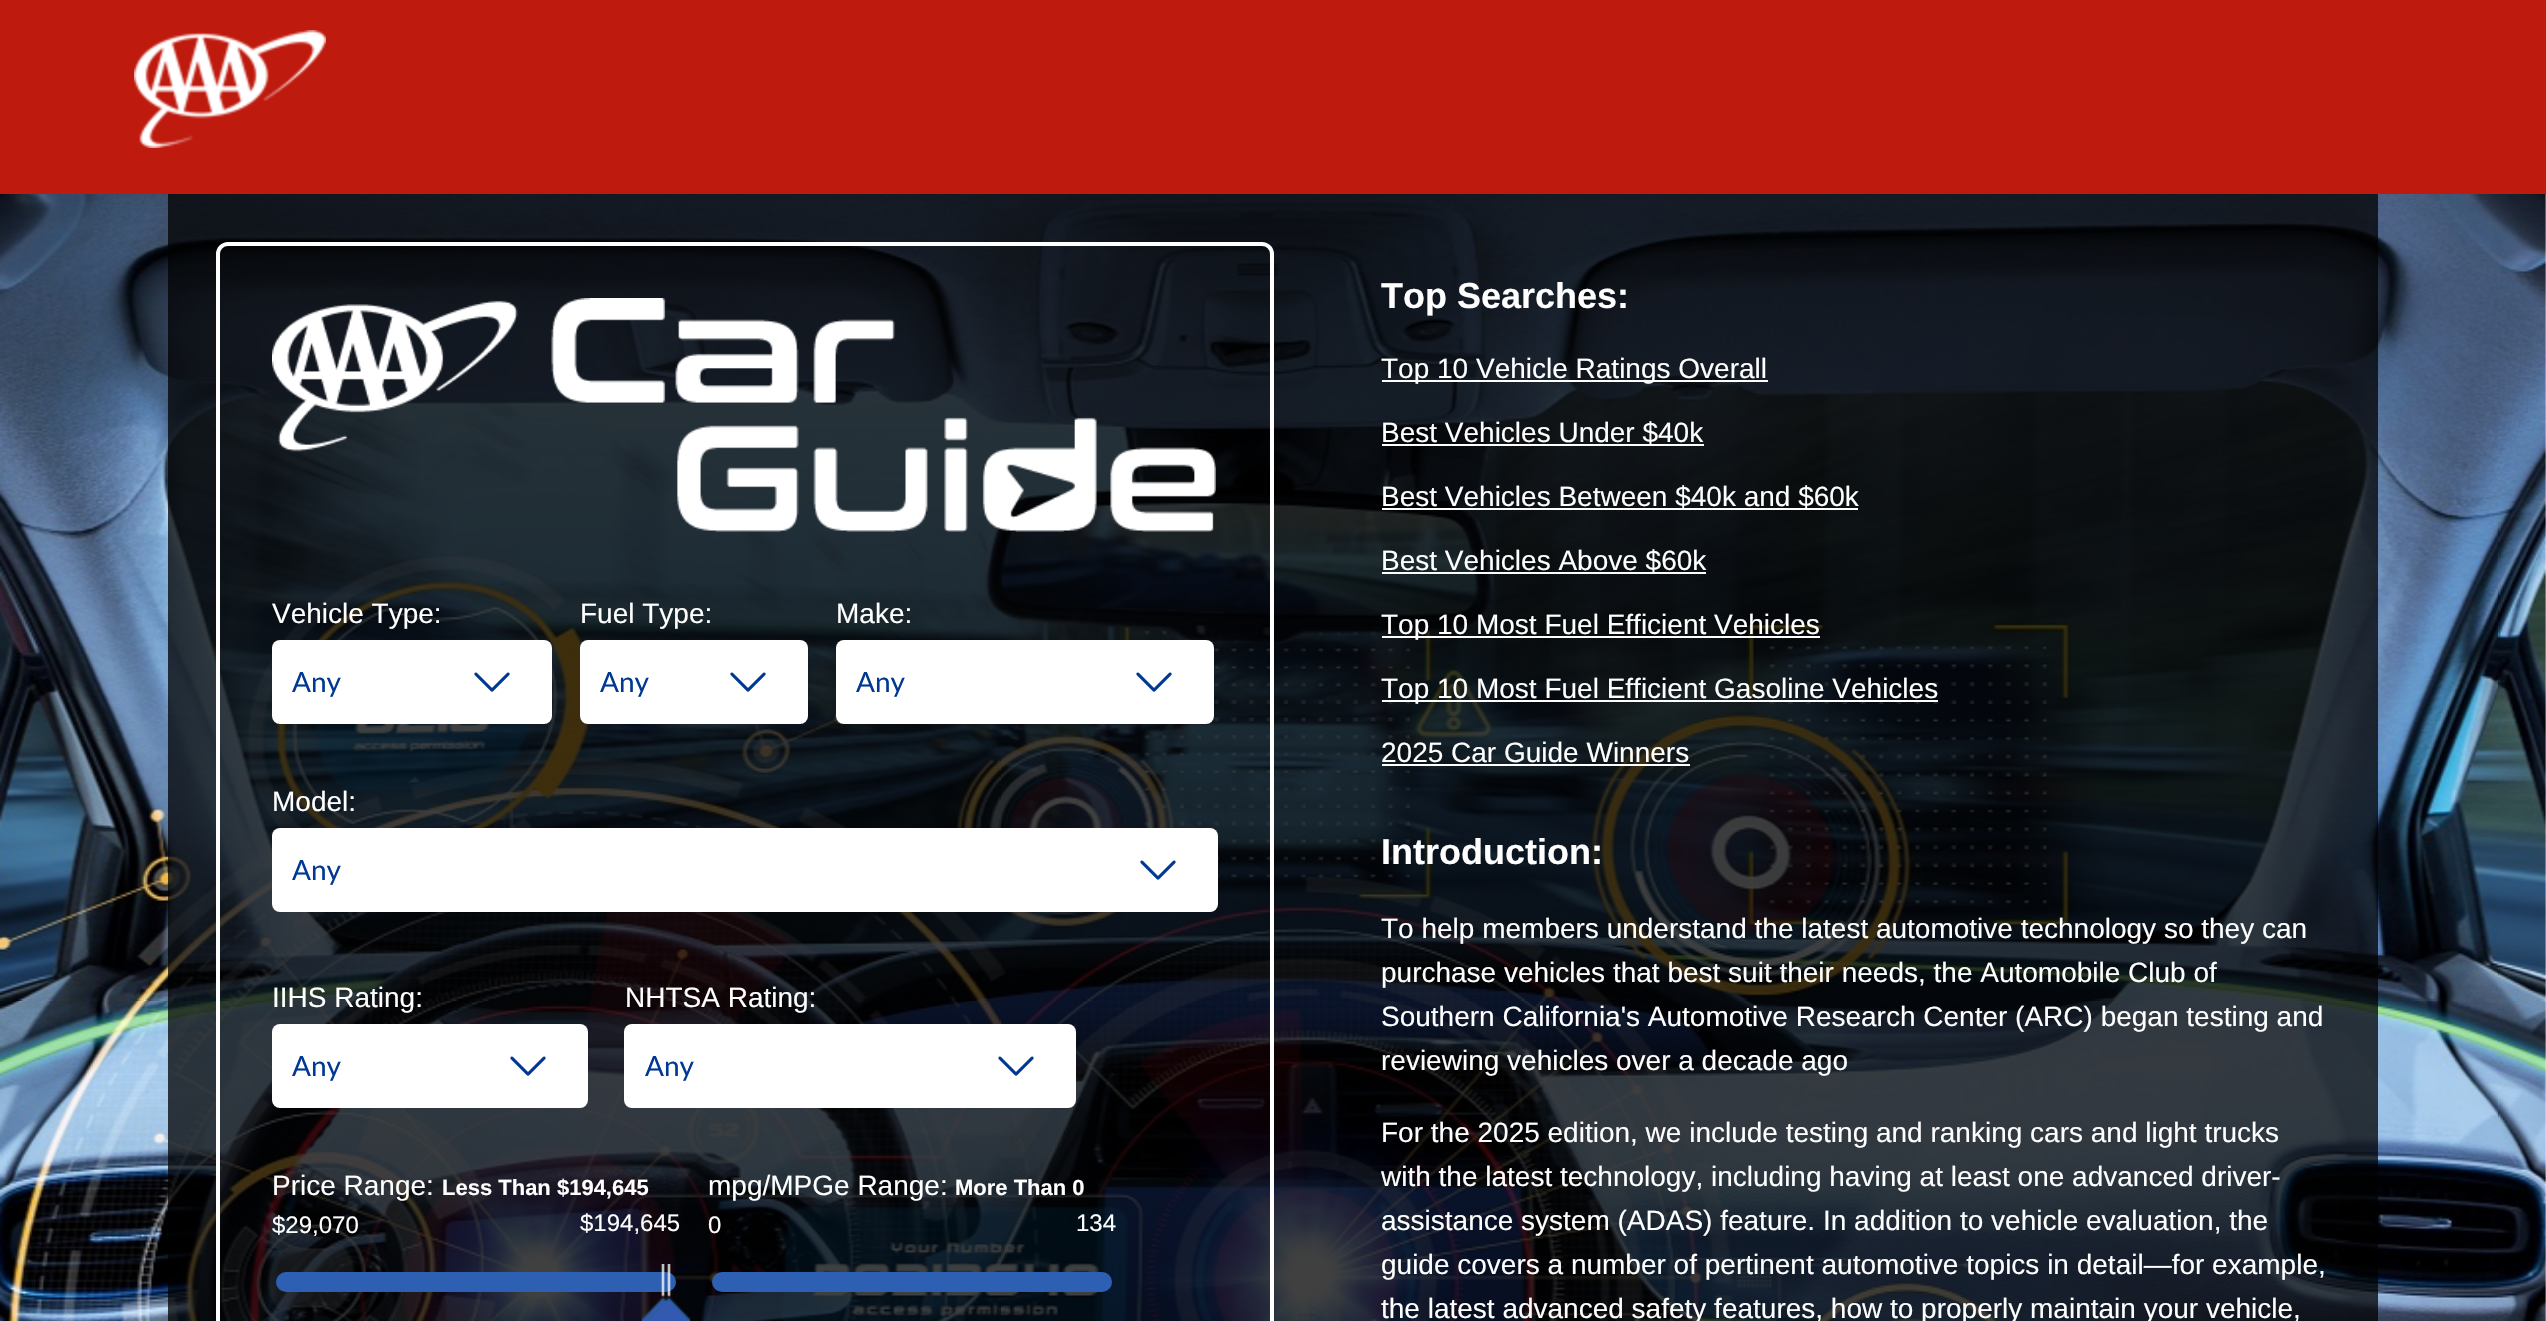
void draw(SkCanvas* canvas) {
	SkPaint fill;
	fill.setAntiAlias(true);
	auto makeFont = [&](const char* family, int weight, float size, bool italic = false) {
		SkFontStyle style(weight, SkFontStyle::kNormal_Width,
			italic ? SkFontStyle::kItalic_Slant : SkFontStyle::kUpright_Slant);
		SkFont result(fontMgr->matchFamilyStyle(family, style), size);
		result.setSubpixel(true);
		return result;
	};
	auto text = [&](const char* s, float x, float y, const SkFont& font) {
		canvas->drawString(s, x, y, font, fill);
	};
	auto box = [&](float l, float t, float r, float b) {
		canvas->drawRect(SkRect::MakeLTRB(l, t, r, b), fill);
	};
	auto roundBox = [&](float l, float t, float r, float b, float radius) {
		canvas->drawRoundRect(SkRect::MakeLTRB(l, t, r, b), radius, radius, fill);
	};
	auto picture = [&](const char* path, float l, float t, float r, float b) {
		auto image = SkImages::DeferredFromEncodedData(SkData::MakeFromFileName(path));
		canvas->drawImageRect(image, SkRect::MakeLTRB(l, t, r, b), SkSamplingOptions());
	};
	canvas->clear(0xFFFFFFFF);
	fill.setColor(0xFFBE1A0E);
	box(0, 0, 2546, 194);
	picture("image0.png", 134, 30, 326, 148);
	picture("image1.png", 0, 194, 2546, 1321);
	fill.setColor(0xBF000000);
	box(168, 194, 2378, 1321);
	fill.setStyle(SkPaint::kStroke_Style);
	fill.setStrokeWidth(4);
	fill.setColor(0xFFFFFFFF);
	canvas->drawRoundRect(SkRect::MakeLTRB(218, 244, 1272, 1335), 10, 10, fill);
	picture("image2.png", 272, 298, 1216, 532);
	fill.setStyle(SkPaint::kFill_Style);
	roundBox(272, 640, 552, 724, 8);
	picture("image3.png", 474, 672, 510, 692);
	roundBox(580, 640, 808, 724, 8);
	picture("image3.png", 730, 672, 766, 692);
	roundBox(836, 640, 1214, 724, 8);
	picture("image3.png", 1136, 672, 1172, 692);
	roundBox(272, 828, 1218, 912, 8);
	picture("image3.png", 1140, 860, 1176, 880);
	roundBox(272, 1024, 588, 1108, 8);
	picture("image3.png", 510, 1056, 546, 1076);
	roundBox(624, 1024, 1076, 1108, 8);
	picture("image3.png", 998, 1056, 1034, 1076);
	fill.setColor(0xFF2D60B3);
	roundBox(276, 1272, 676, 1292, 10);
	picture("image4.png", 642, 1264, 671, 1321);
	roundBox(712, 1272, 1112, 1292, 10);
	picture("image5.png", 648, 1264, 690, 1321);
	fill.setColor(0xFFFFFFFF);
	box(1382, 380, 1768, 382);
	box(1382, 444, 1704, 446);
	box(1382, 508, 1858, 510);
	box(1382, 572, 1706, 574);
	box(1382, 636, 1820, 638);
	box(1382, 700, 1938, 702);
	box(1382, 764, 1690, 766);
	auto font1 = makeFont("Liberation Sans", 400, 28);
	text("Vehicle Type:", 272, 623, font1);
	auto font2 = makeFont("Lato", 400, 28);
	fill.setColor(0xFF003893);
	text("Any", 292, 692, font2);
	fill.setColor(0xFFFFFFFF);
	text("Fuel Type:", 580, 623, font1);
	fill.setColor(0xFF003893);
	text("Any", 600, 692, font2);
	fill.setColor(0xFFFFFFFF);
	text("Make:", 836, 623, font1);
	fill.setColor(0xFF003893);
	text("Any", 856, 692, font2);
	fill.setColor(0xFFFFFFFF);
	text("Model:", 272, 811, font1);
	fill.setColor(0xFF003893);
	text("Any", 292, 880, font2);
	fill.setColor(0xFFFFFFFF);
	text("IIHS Rating:", 272, 1007, font1);
	fill.setColor(0xFF003893);
	text("Any", 292, 1076, font2);
	fill.setColor(0xFFFFFFFF);
	text("NHTSA Rating:", 625, 1007, font1);
	fill.setColor(0xFF003893);
	text("Any", 645, 1076, font2);
	fill.setColor(0xFFFFFFFF);
	text("Price Range:", 272, 1195, font1);
	auto font3 = makeFont("Liberation Sans", 700, 22);
	text("Less Than $194,645", 442, 1195, font3);
	auto font4 = makeFont("Liberation Sans", 400, 24);
	text("$29,070", 272, 1233, font4);
	text("$194,645", 580, 1231, font4);
	text("mpg/MPGe Range:", 708, 1195, font1);
	text("More Than 0", 955, 1195, font3);
	text("0", 708, 1233, font4);
	text("134", 1076, 1231, font4);
	auto font5 = makeFont("Liberation Sans", 700, 36);
	text("Top Searches:", 1381, 308, font5);
	text("Top 10 Vehicle Ratings Overall", 1381, 378, font1);
	text("Best Vehicles Under $40k", 1381, 442, font1);
	text("Best Vehicles Between $40k and $60k", 1381, 506, font1);
	text("Best Vehicles Above $60k", 1381, 570, font1);
	text("Top 10 Most Fuel Efficient Vehicles", 1381, 634, font1);
	text("Top 10 Most Fuel Efficient Gasoline Vehicles", 1381, 698, font1);
	text("2025 Car Guide Winners", 1381, 762, font1);
	text("Introduction:", 1381, 864, font5);
	text("To help members understand the latest automotive technology so they can", 1381, 938, font1);
	text("purchase vehicles that best suit their needs, the Automobile Club of", 1381, 982, font1);
	text("Southern California's Automotive Research Center (ARC) began testing and", 1381, 1026, font1);
	text("reviewing vehicles over a decade ago", 1381, 1070, font1);
	text("For the 2025 edition, we include testing and ranking cars and light trucks", 1381, 1142, font1);
	text("with the latest technology, including having at least one advanced driver-", 1381, 1186, font1);
	text("assistance system (ADAS) feature. In addition to vehicle evaluation, the", 1381, 1230, font1);
	text("guide covers a number of pertinent automotive topics in detail—for example,", 1381, 1274, font1);
	text("the latest advanced safety features, how to properly maintain your vehicle,", 1381, 1318, font1);
}
